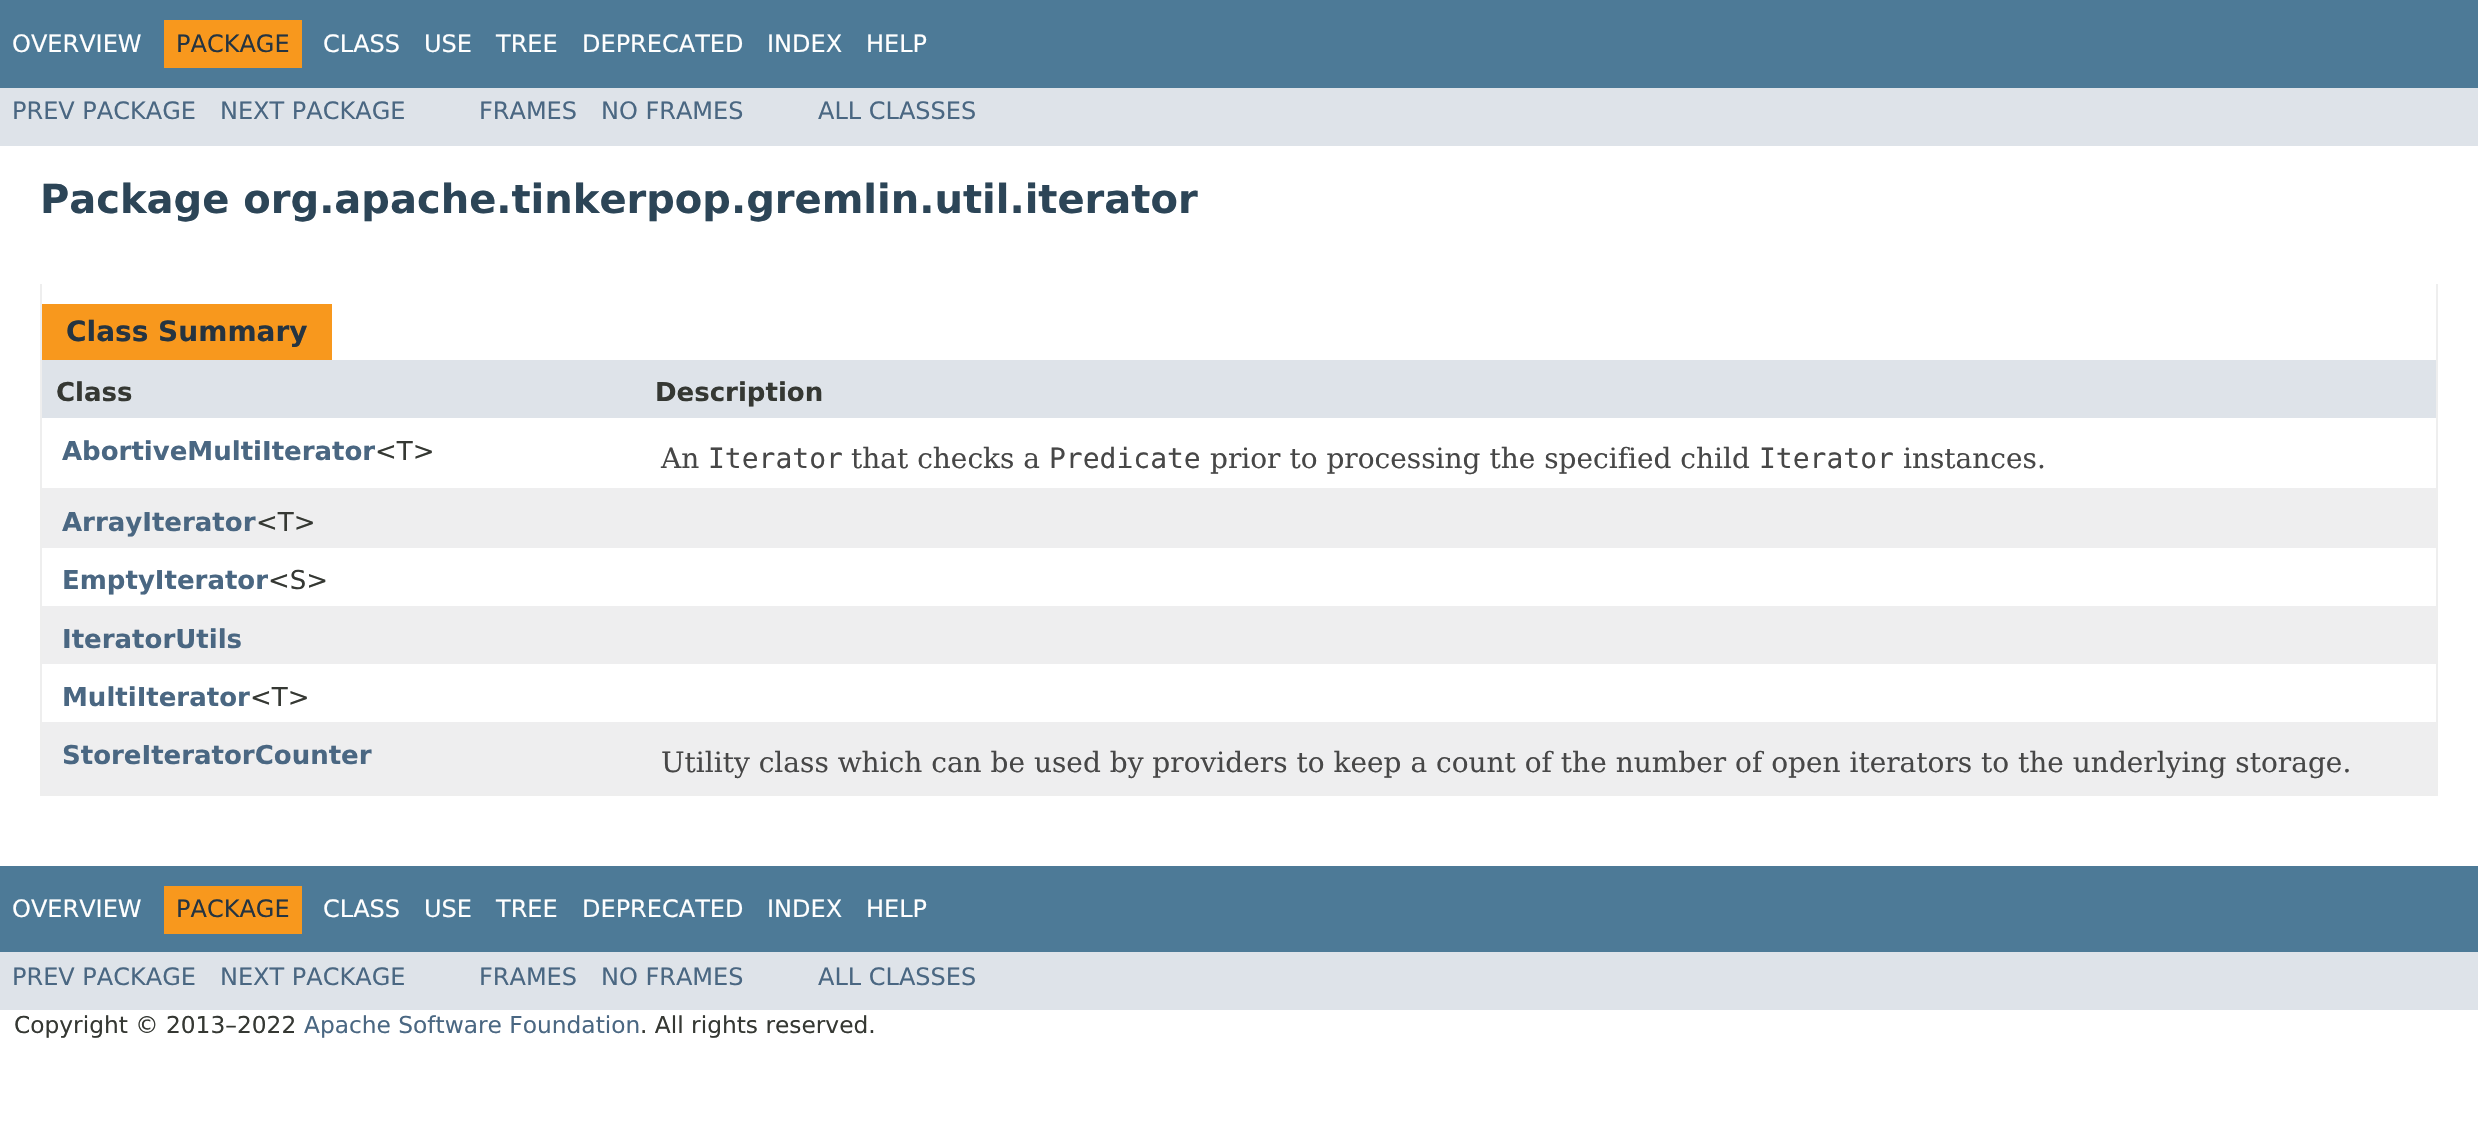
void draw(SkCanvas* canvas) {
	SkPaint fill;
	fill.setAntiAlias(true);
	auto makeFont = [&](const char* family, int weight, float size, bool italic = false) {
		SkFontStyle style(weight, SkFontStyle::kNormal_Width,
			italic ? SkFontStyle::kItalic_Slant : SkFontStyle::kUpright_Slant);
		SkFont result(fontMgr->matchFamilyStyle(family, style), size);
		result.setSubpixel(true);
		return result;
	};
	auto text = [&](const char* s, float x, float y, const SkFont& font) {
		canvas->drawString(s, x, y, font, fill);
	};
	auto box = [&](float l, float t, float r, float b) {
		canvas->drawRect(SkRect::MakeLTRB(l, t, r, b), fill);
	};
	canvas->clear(0xFFFFFFFF);
	fill.setColor(0xFF4D7A97);
	box(0, 0, 2478, 88);
	fill.setColor(0xFFF8981D);
	box(164, 20, 302, 68);
	fill.setColor(0xFFDEE3E9);
	box(0, 88, 2478, 146);
	fill.setColor(0xFFEEEEEE);
	box(2436, 284, 2438, 796);
	box(40, 794, 2438, 796);
	box(40, 284, 42, 796);
	fill.setColor(0xFFF8981D);
	box(42, 304, 332, 360);
	fill.setColor(0xFFDEE3E9);
	box(42, 360, 2436, 418);
	fill.setColor(0xFFEEEEEF);
	box(42, 488, 2436, 548);
	box(42, 606, 2436, 664);
	box(42, 722, 2436, 794);
	fill.setColor(0xFF4D7A97);
	box(0, 866, 2478, 952);
	fill.setColor(0xFFF8981D);
	box(164, 886, 302, 934);
	fill.setColor(0xFFDEE3E9);
	box(0, 952, 2478, 1010);
	auto font1 = makeFont("DejaVu Sans", 400, 24);
	fill.setColor(0xFFFFFFFF);
	text("OVERVIEW", 12, 52, font1);
	fill.setColor(0xFF253441);
	text("PACKAGE", 176, 52, font1);
	fill.setColor(0xFFFFFFFF);
	text("CLASS", 323, 52, font1);
	text("USE", 424, 52, font1);
	text("TREE", 496, 52, font1);
	text("DEPRECATED", 582, 52, font1);
	text("INDEX", 767, 52, font1);
	text("HELP", 866, 52, font1);
	fill.setColor(0xFF4A6782);
	text("PREV PACKAGE", 12, 119, font1);
	text("NEXT PACKAGE", 220, 119, font1);
	text("FRAMES", 479, 119, font1);
	text("NO FRAMES", 601, 119, font1);
	text("ALL CLASSES", 818, 119, font1);
	auto font2 = makeFont("DejaVu Sans", 700, 40);
	fill.setColor(0xFF2C4557);
	text("Package org.apache.tinkerpop.gremlin.util.iterator", 40, 213, font2);
	auto font3 = makeFont("DejaVu Sans", 700, 28);
	fill.setColor(0xFF253441);
	text("Class Summary", 66, 341, font3);
	auto font4 = makeFont("DejaVu Sans", 700, 26);
	fill.setColor(0xFF353833);
	text("Class", 56, 401, font4);
	text("Description", 655, 401, font4);
	fill.setColor(0xFF4A6782);
	text("AbortiveMultiIterator", 62, 460, font4);
	auto font5 = makeFont("DejaVu Sans", 400, 26);
	fill.setColor(0xFF353833);
	text("<T>", 375, 460, font5);
	auto font6 = makeFont("DejaVu Serif", 400, 28);
	fill.setColor(0xFF474747);
	text("An", 661, 468, font6);
	auto font7 = makeFont("DejaVu Sans Mono", 400, 28);
	text("Iterator", 708, 468, font7);
	text("that checks a", 851, 468, font6);
	text("Predicate", 1049, 468, font7);
	text("prior to processing the specified child", 1210, 468, font6);
	text("Iterator", 1759, 468, font7);
	text("instances.", 1903, 468, font6);
	fill.setColor(0xFF4A6782);
	text("ArrayIterator", 62, 531, font4);
	fill.setColor(0xFF353833);
	text("<T>", 256, 531, font5);
	fill.setColor(0xFF4A6782);
	text("EmptyIterator", 62, 589, font4);
	fill.setColor(0xFF353833);
	text("<S>", 268, 589, font5);
	fill.setColor(0xFF4A6782);
	text("IteratorUtils", 62, 648, font4);
	text("MultiIterator", 62, 706, font4);
	fill.setColor(0xFF353833);
	text("<T>", 250, 706, font5);
	fill.setColor(0xFF4A6782);
	text("StoreIteratorCounter", 62, 764, font4);
	fill.setColor(0xFF474747);
	text("Utility class which can be used by providers to keep a count of the number of open iterators to the underlying storage.", 661, 772, font6);
	fill.setColor(0xFFFFFFFF);
	text("OVERVIEW", 12, 917, font1);
	fill.setColor(0xFF253441);
	text("PACKAGE", 176, 917, font1);
	fill.setColor(0xFFFFFFFF);
	text("CLASS", 323, 917, font1);
	text("USE", 424, 917, font1);
	text("TREE", 496, 917, font1);
	text("DEPRECATED", 582, 917, font1);
	text("INDEX", 767, 917, font1);
	text("HELP", 866, 917, font1);
	fill.setColor(0xFF4A6782);
	text("PREV PACKAGE", 12, 985, font1);
	text("NEXT PACKAGE", 220, 985, font1);
	text("FRAMES", 479, 985, font1);
	text("NO FRAMES", 601, 985, font1);
	text("ALL CLASSES", 818, 985, font1);
	auto font8 = makeFont("DejaVu Sans", 400, 23.3f);
	fill.setColor(0xFF353833);
	text("Copyright © 2013–2022", 14, 1033, font8);
	fill.setColor(0xFF4A6782);
	text("Apache Software Foundation", 304, 1033, font8);
	fill.setColor(0xFF353833);
	text(". All rights reserved.", 640, 1033, font8);
}
